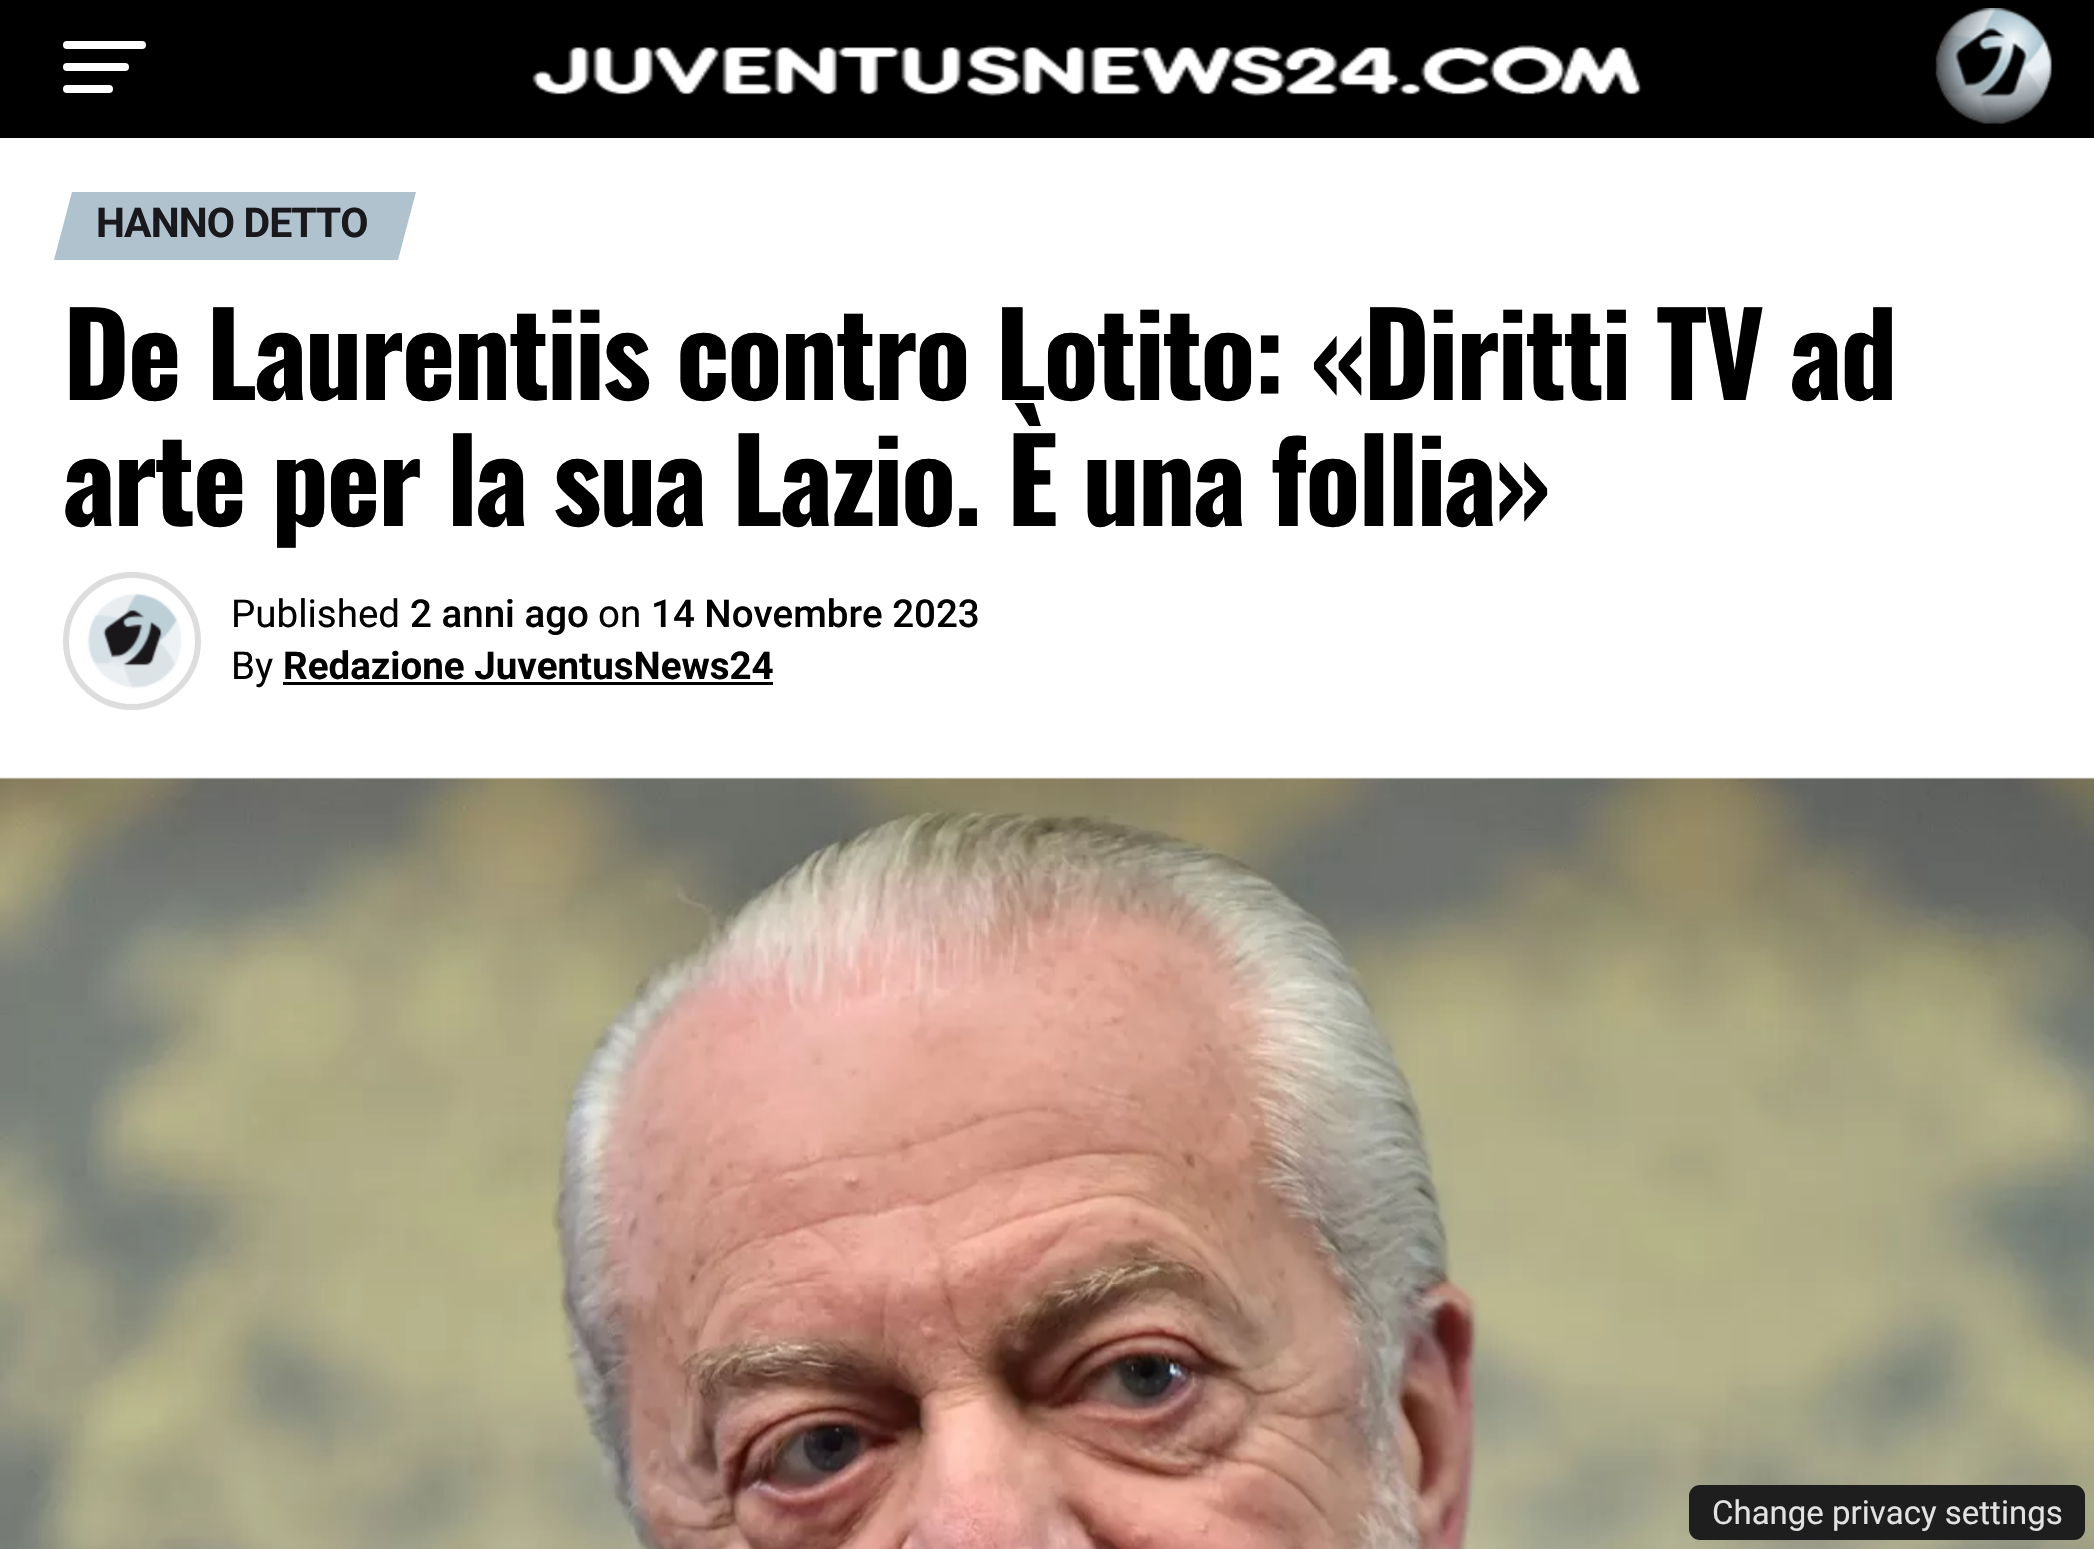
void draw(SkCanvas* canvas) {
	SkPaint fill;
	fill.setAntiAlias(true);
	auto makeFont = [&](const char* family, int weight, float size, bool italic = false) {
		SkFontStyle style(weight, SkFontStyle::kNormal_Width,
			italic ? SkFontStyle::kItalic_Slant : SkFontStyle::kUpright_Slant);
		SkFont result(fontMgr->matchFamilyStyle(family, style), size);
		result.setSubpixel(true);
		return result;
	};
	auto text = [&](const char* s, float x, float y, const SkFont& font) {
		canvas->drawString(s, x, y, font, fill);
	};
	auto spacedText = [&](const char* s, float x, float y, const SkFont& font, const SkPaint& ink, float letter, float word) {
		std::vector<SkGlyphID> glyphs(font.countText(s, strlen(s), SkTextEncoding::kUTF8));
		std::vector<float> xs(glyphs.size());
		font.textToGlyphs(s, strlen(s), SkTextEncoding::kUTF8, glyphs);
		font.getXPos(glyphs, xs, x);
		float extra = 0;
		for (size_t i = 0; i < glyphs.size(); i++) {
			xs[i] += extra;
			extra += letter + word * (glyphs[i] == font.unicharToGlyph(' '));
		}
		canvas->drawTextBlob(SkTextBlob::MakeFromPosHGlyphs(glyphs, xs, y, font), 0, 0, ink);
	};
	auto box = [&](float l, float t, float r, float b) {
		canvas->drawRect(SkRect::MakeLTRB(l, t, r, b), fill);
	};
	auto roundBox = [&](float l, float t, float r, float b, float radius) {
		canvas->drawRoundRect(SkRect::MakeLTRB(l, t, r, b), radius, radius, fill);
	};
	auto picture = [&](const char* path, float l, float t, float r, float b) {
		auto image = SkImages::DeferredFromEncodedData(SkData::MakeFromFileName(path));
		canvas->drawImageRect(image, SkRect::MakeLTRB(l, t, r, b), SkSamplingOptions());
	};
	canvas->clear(0xFFFFFFFF);
	fill.setColor(0xFF000000);
	box(0, 0, 2094, 138);
	fill.setColor(0xFFFFFFFF);
	roundBox(63, 41, 146, 49, 4);
	roundBox(63, 63, 129, 71, 4);
	roundBox(63, 85, 113, 93, 4);
	picture("image0.png", 532, 45, 1642, 97);
	picture("image1.png", 1935, 8, 2052, 124);
	fill.setColor(0xFFB0C2CE);
	canvas->drawPath(SkPathBuilder().moveTo(72, 192).lineTo(416, 192).lineTo(398, 260).lineTo(54, 260).close().detach(), fill);
	fill.setStyle(SkPaint::kStroke_Style);
	fill.setStrokeWidth(6);
	fill.setColor(0xFFDDDDDD);
	canvas->drawCircle(132, 641, 66, fill);
	picture("image2.png", 87, 593, 182, 689);
	fill.setStyle(SkPaint::kFill_Style);
	fill.setColor(0xFF000000);
	box(283, 682, 773, 685);
	picture("image3.png", 0, 777, 2094, 1549);
	fill.setColor(0xFF1E1E1E);
	roundBox(1689, 1485, 2085, 1540, 11);
	auto font1 = makeFont("Roboto", 700, 41);
	fill.setColor(0xFF19181C);
	spacedText("HANNO DETTO", 96, 237, font1, fill, -0.9f, 0);
	auto font2 = makeFont("Oswald", 700, 114.4f);
	fill.setColor(0xFF000000);
	spacedText("De Laurentiis contro Lotito: «Diritti TV ad", 63, 400, font2, fill, -2.3f, 0);
	spacedText("arte per la sua Lazio. È una follia»", 63, 526, font2, fill, -2.3f, 0);
	auto font3 = makeFont("Roboto", 400, 38.5f);
	text("Published", 231, 627, font3);
	auto font4 = makeFont("Roboto", 500, 38.5f);
	text("2 anni ago", 410, 627, font4);
	text("on", 598, 627, font3);
	text("14 Novembre 2023", 651, 627, font4);
	text("By", 231, 679, font3);
	auto font5 = makeFont("Roboto", 700, 38.5f);
	text("Redazione JuventusNews24", 283, 679, font5);
	auto font6 = makeFont("Roboto", 400, 33);
	fill.setColor(0xFFE3E1E1);
	text("Change privacy settings", 1712, 1524, font6);
}
